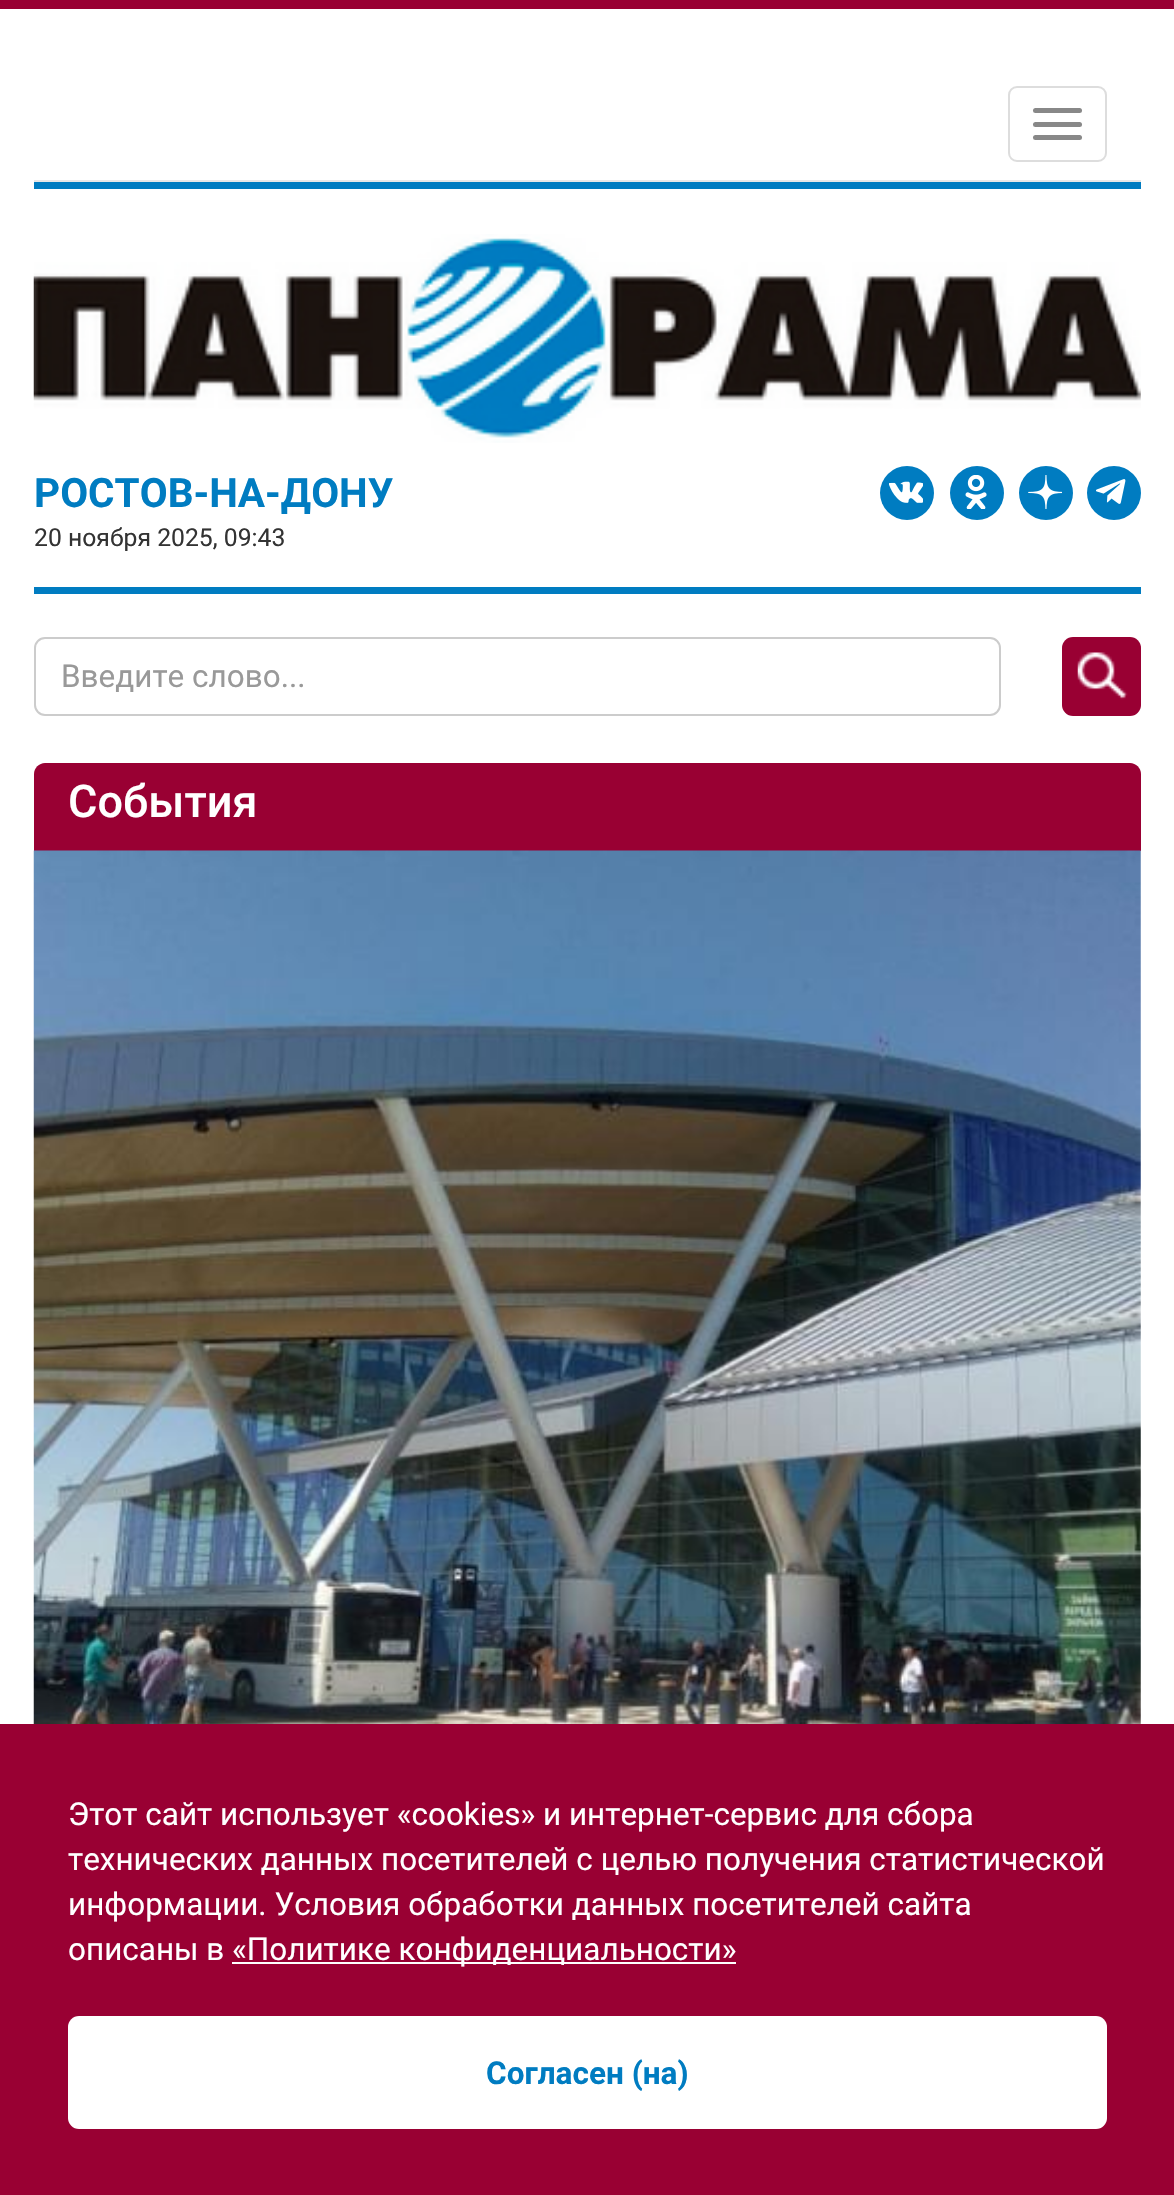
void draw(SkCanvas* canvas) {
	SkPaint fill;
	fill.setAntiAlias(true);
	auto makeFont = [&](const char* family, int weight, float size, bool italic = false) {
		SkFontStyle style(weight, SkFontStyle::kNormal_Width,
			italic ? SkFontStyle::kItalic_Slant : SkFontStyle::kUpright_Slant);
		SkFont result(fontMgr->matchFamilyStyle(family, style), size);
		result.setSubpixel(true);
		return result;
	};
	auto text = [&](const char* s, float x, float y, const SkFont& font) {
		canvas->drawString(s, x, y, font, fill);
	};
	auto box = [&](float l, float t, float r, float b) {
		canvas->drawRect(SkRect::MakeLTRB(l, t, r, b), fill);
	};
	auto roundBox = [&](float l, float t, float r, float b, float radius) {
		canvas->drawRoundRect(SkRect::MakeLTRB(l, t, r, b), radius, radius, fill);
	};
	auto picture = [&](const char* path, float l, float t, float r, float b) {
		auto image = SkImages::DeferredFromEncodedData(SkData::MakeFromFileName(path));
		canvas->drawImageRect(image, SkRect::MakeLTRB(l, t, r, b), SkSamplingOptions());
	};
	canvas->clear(0xFFFFFFFF);
	fill.setColor(0xFF990033);
	box(0, 0, 1174, 9);
	fill.setColor(0xFFE7E7E7);
	box(34, 180, 1141, 182);
	fill.setStyle(SkPaint::kStroke_Style);
	fill.setStrokeWidth(2);
	fill.setColor(0xFFDDDDDD);
	canvas->drawRoundRect(SkRect::MakeLTRB(1009, 87, 1106, 161), 8, 8, fill);
	fill.setStyle(SkPaint::kFill_Style);
	fill.setColor(0xFF888888);
	roundBox(1033, 108, 1082, 113, 2.5f);
	roundBox(1033, 122, 1082, 127, 2.5f);
	roundBox(1033, 135, 1082, 140, 2.5f);
	fill.setColor(0xFF007CC1);
	box(34, 182, 1141, 189);
	picture("image0.png", 33, 234, 1141, 443);
	canvas->drawCircle(907, 493, 27, fill);
	picture("image1.png", 889, 481, 923, 503);
	canvas->drawCircle(977, 493, 27, fill);
	picture("image2.png", 965, 475, 987, 509);
	canvas->drawCircle(1046, 493, 27, fill);
	picture("image3.png", 1028, 475, 1062, 509);
	canvas->drawCircle(1114, 493, 27, fill);
	picture("image4.png", 1096, 479, 1126, 504);
	box(34, 587, 1141, 594);
	fill.setStyle(SkPaint::kStroke_Style);
	fill.setColor(0xFFCCCCCC);
	canvas->drawRoundRect(SkRect::MakeLTRB(35, 638, 1000, 715), 10, 10, fill);
	fill.setStyle(SkPaint::kFill_Style);
	fill.setColor(0xFF990033);
	roundBox(1062, 637, 1141, 716, 11);
	picture("image5.png", 1077, 652, 1128, 700);
	canvas->drawPath(SkPathBuilder().moveTo(45, 763).lineTo(1130, 763).cubicTo(1136, 763, 1141, 768, 1141, 774).lineTo(1141, 851).lineTo(34, 851).lineTo(34, 774).cubicTo(34, 768, 39, 763, 45, 763).close().detach(), fill);
	picture("image6.png", 33, 850, 1141, 1724);
	box(0, 1724, 1174, 2195);
	fill.setColor(0xFFFFFFFF);
	box(232, 1962, 736, 1964);
	roundBox(68, 2016, 1107, 2129, 11);
	auto font1 = makeFont("Roboto", 700, 40.5f);
	fill.setColor(0xFF007CC1);
	text("РОСТОВ-НА-ДОНУ", 34, 507, font1);
	auto font2 = makeFont("Roboto", 400, 24.75f);
	fill.setColor(0xFF333333);
	text("20 ноября 2025, 09:43", 34, 546, font2);
	auto font3 = makeFont("Roboto", 400, 31.5f);
	fill.setColor(0xFF999999);
	text("Введите слово...", 61, 687, font3);
	auto font4 = makeFont("Roboto", 500, 45);
	fill.setColor(0xFFFFFFFF);
	text("События", 68, 817, font4);
	text("Этот сайт использует «cookies» и интернет-сервис для сбора", 68, 1825, font3);
	text("технических данных посетителей с целью получения статистической", 68, 1870, font3);
	text("информации. Условия обработки данных посетителей сайта", 68, 1915, font3);
	text("описаны в", 68, 1960, font3);
	text("«Политике конфиденциальности»", 232, 1960, font3);
	auto font5 = makeFont("Roboto", 700, 31.5f);
	fill.setColor(0xFF007CC1);
	text("Согласен (на)", 486, 2084, font5);
}
